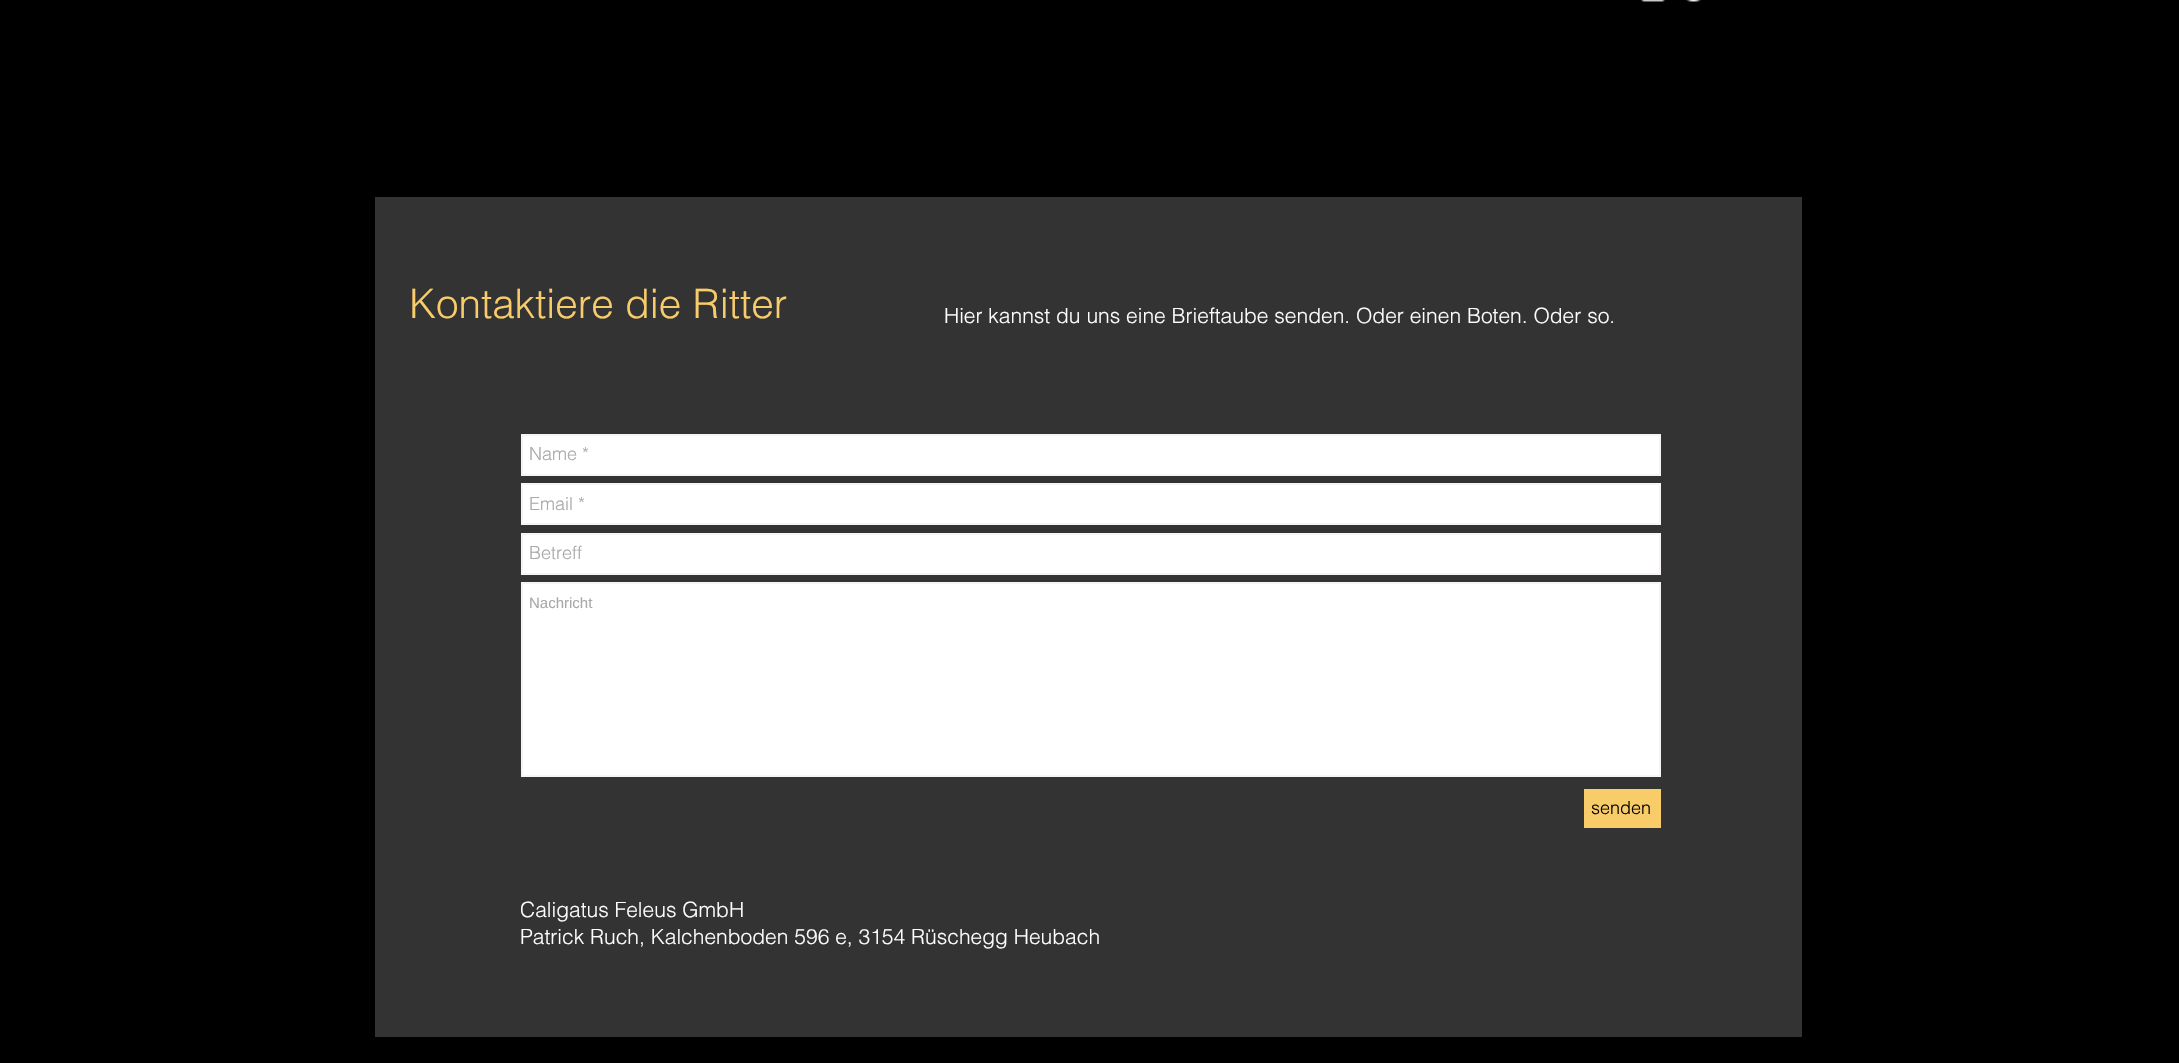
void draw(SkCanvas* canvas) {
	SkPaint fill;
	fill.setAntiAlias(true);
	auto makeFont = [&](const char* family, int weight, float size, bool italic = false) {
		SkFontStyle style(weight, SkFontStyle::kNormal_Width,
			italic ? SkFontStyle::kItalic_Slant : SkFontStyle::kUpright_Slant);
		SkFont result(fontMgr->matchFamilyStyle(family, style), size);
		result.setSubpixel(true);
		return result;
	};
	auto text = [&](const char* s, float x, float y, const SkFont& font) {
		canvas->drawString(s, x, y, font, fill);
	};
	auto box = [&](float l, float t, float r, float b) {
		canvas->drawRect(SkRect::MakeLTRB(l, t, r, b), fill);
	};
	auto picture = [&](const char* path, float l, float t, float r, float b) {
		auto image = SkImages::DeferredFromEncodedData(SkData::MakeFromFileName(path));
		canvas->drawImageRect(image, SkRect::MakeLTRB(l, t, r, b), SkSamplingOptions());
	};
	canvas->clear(0xFF000000);
	picture("image0.png", 1641, 0, 1665, 2);
	picture("image1.png", 1686, 0, 1701, 2);
	fill.setColor(0xFF343333);
	box(375, 197, 1802, 1037);
	fill.setColor(0xFFFFFFFF);
	canvas->drawRect(SkRect::MakeLTRB(522, 435, 1660, 475), fill);
	fill.setStyle(SkPaint::kStroke_Style);
	fill.setStrokeWidth(2);
	fill.setColor(0xFFF9F4F4);
	canvas->drawRect(SkRect::MakeLTRB(522, 435, 1660, 475), fill);
	fill.setStyle(SkPaint::kFill_Style);
	fill.setColor(0xFFFFFFFF);
	canvas->drawRect(SkRect::MakeLTRB(522, 484, 1660, 524), fill);
	fill.setStyle(SkPaint::kStroke_Style);
	fill.setColor(0xFFF9F4F4);
	canvas->drawRect(SkRect::MakeLTRB(522, 484, 1660, 524), fill);
	fill.setStyle(SkPaint::kFill_Style);
	fill.setColor(0xFFFFFFFF);
	canvas->drawRect(SkRect::MakeLTRB(522, 534, 1660, 574), fill);
	fill.setStyle(SkPaint::kStroke_Style);
	fill.setColor(0xFFF9F4F4);
	canvas->drawRect(SkRect::MakeLTRB(522, 534, 1660, 574), fill);
	fill.setStyle(SkPaint::kFill_Style);
	fill.setColor(0xFFFFFFFF);
	canvas->drawRect(SkRect::MakeLTRB(522, 583, 1660, 776), fill);
	fill.setStyle(SkPaint::kStroke_Style);
	fill.setColor(0xFFF9F4F4);
	canvas->drawRect(SkRect::MakeLTRB(522, 583, 1660, 776), fill);
	fill.setStyle(SkPaint::kFill_Style);
	fill.setColor(0xFFF9CC6A);
	box(1584, 789, 1661, 828);
	auto font1 = makeFont("helvetica", 300, 40.5f);
	text("Kontaktiere die Ritter", 409, 318, font1);
	auto font2 = makeFont("helvetica", 300, 21);
	fill.setColor(0xFFFFFFFF);
	text("Hier kannst du uns eine Brieftaube senden. Oder einen Boten. Oder so.", 944, 323, font2);
	auto font3 = makeFont("helvetica", 300, 18);
	fill.setColor(0xFFA9A9A9);
	text("Name *", 529, 460, font3);
	text("Email *", 529, 510, font3);
	text("Betreff", 529, 559, font3);
	auto font4 = makeFont("Liberation Sans", 400, 15);
	text("Nachricht", 529, 608, font4);
	fill.setColor(0xFF000000);
	text("senden", 1591, 814, font3);
	fill.setColor(0xFFFFFFFF);
	text("Caligatus Feleus GmbH", 520, 917, font2);
	text("Patrick Ruch, Kalchenboden 596 e, 3154 Rüschegg Heubach", 520, 944, font2);
}
